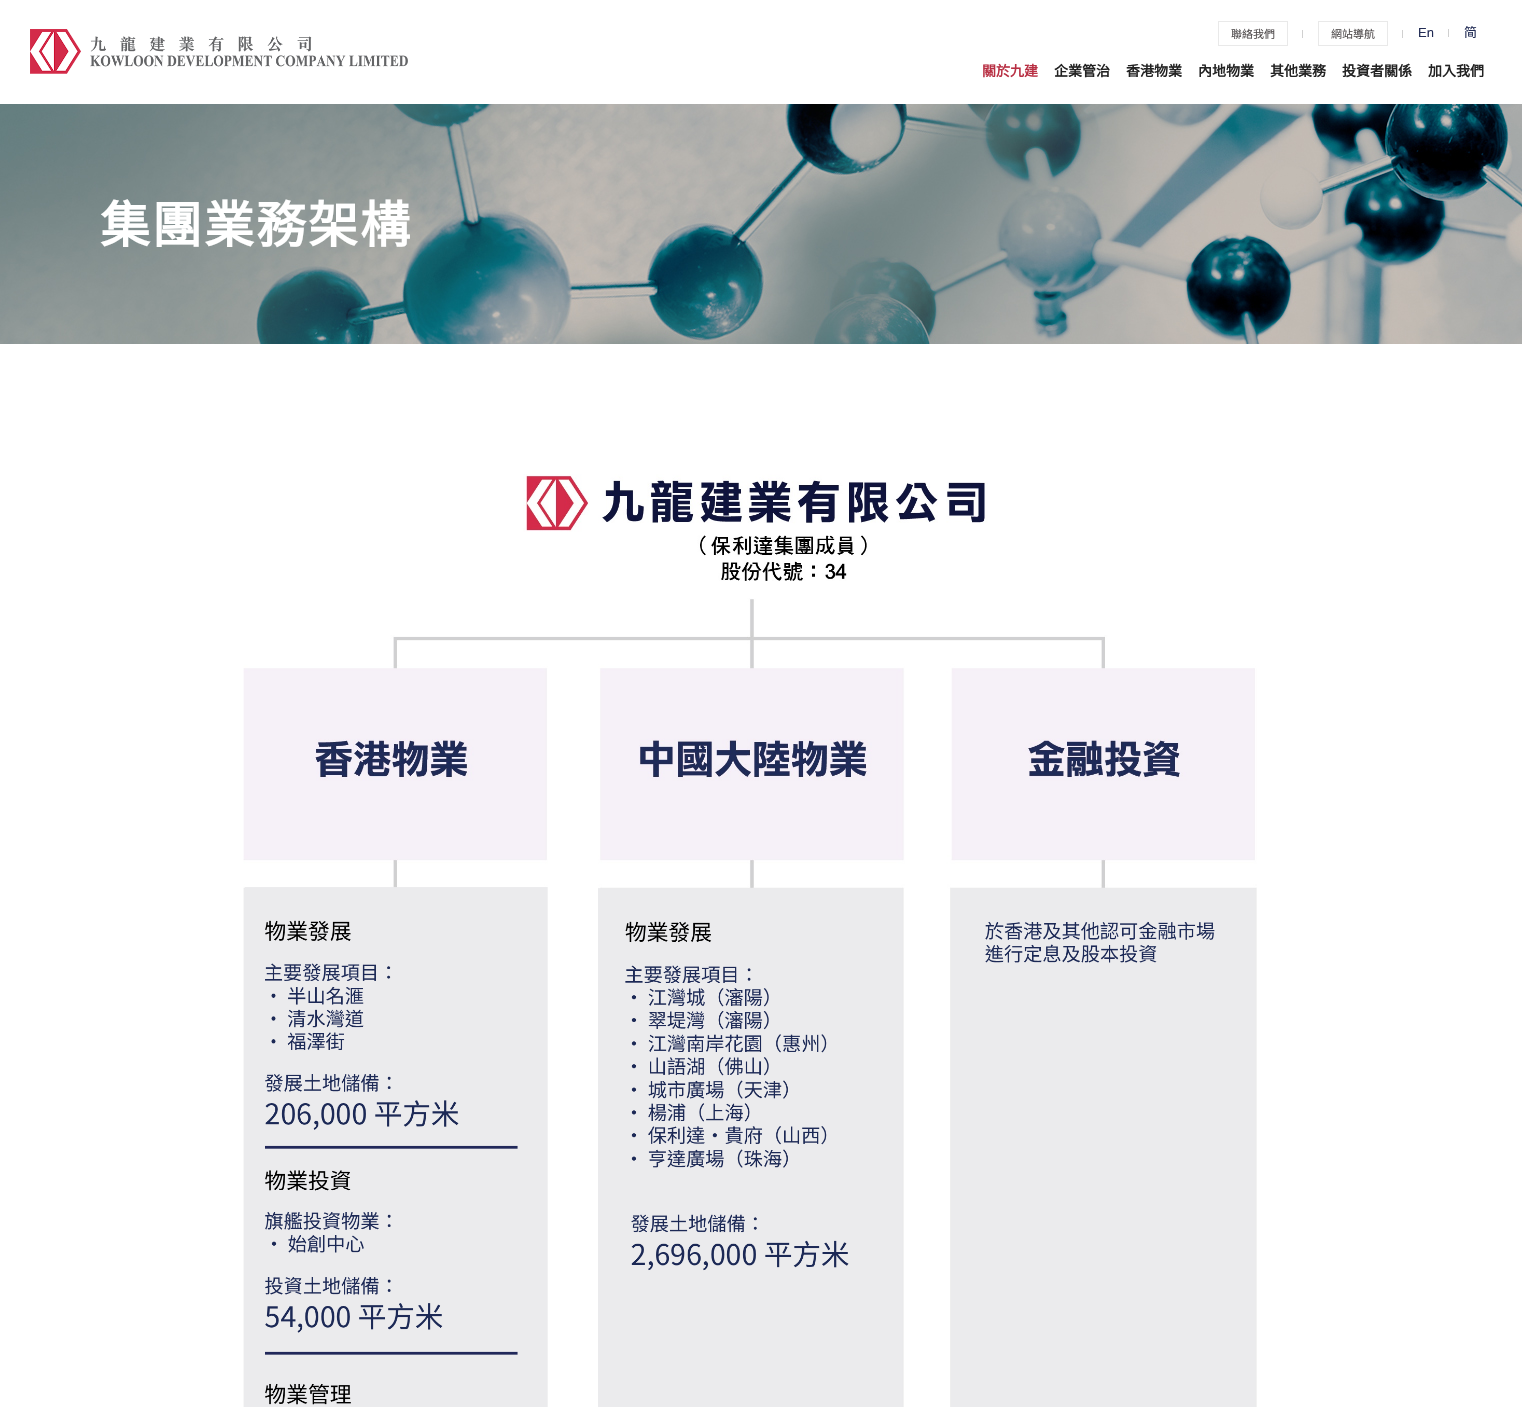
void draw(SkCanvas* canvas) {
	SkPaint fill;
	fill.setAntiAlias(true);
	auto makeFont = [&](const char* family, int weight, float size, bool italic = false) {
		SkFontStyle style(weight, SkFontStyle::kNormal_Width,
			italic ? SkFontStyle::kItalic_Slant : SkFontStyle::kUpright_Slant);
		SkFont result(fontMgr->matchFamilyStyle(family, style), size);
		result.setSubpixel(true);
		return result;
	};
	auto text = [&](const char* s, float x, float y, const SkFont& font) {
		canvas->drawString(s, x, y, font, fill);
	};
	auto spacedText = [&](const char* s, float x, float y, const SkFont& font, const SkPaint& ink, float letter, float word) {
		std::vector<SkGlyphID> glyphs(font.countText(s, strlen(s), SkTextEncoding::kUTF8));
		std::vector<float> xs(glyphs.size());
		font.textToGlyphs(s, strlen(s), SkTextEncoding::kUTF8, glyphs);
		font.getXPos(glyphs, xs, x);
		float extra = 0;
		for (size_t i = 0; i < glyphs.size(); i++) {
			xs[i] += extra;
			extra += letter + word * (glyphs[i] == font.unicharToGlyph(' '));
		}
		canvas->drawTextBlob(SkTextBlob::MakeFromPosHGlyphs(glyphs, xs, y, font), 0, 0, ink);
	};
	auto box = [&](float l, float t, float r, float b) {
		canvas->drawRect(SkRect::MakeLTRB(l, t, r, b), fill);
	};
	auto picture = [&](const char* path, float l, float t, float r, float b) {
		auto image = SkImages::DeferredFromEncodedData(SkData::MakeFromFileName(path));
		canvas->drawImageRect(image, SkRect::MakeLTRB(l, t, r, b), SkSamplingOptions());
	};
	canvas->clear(0xFFFFFFFF);
	picture("image0.png", 30, 29, 408, 74);
	fill.setColor(0xFFD0D0D0);
	box(1302, 30, 1303, 38);
	fill.setStyle(SkPaint::kStroke_Style);
	fill.setStrokeWidth(1);
	fill.setColor(0xFFE9E9E9);
	canvas->drawRect(SkRect::MakeLTRB(1218.5f, 21.5f, 1287.5f, 45.5f), fill);
	fill.setStyle(SkPaint::kFill_Style);
	fill.setColor(0xFFD0D0D0);
	box(1402, 30, 1403, 38);
	fill.setStyle(SkPaint::kStroke_Style);
	fill.setColor(0xFFE9E9E9);
	canvas->drawRect(SkRect::MakeLTRB(1318.5f, 21.5f, 1387.5f, 45.5f), fill);
	fill.setStyle(SkPaint::kFill_Style);
	fill.setColor(0xFFD0D0D0);
	box(1448, 29, 1449, 37);
	picture("image1.png", 0, 104, 1522, 344);
	picture("image2.png", 243, 474, 1257, 1407);
	auto font1 = makeFont("Noto Sans CJK HK", 400, 11);
	fill.setColor(0xFF504C4D);
	text("聯絡我們", 1231, 38, font1);
	text("網站導航", 1331, 38, font1);
	auto font2 = makeFont("Liberation Sans", 400, 13);
	fill.setColor(0xFF222C55);
	text("En", 1418, 37, font2);
	auto font3 = makeFont("Noto Sans CJK HK", 400, 13);
	text("简", 1464, 37, font3);
	auto font4 = makeFont("Noto Sans CJK HK", 700, 14);
	fill.setColor(0xFFB82F43);
	text("關於九建", 982, 76, font4);
	fill.setColor(0xFF222222);
	text("企業管治", 1054, 76, font4);
	text("香港物業", 1126, 76, font4);
	text("內地物業", 1198, 76, font4);
	text("其他業務", 1270, 76, font4);
	text("投資者關係", 1342, 76, font4);
	text("加入我們", 1428, 76, font4);
	auto font5 = makeFont("Noto Sans CJK HK", 700, 50);
	fill.setColor(0xFFFFFFFF);
	spacedText("集團業務架構", 100, 243, font5, fill, 2, 0);
}
